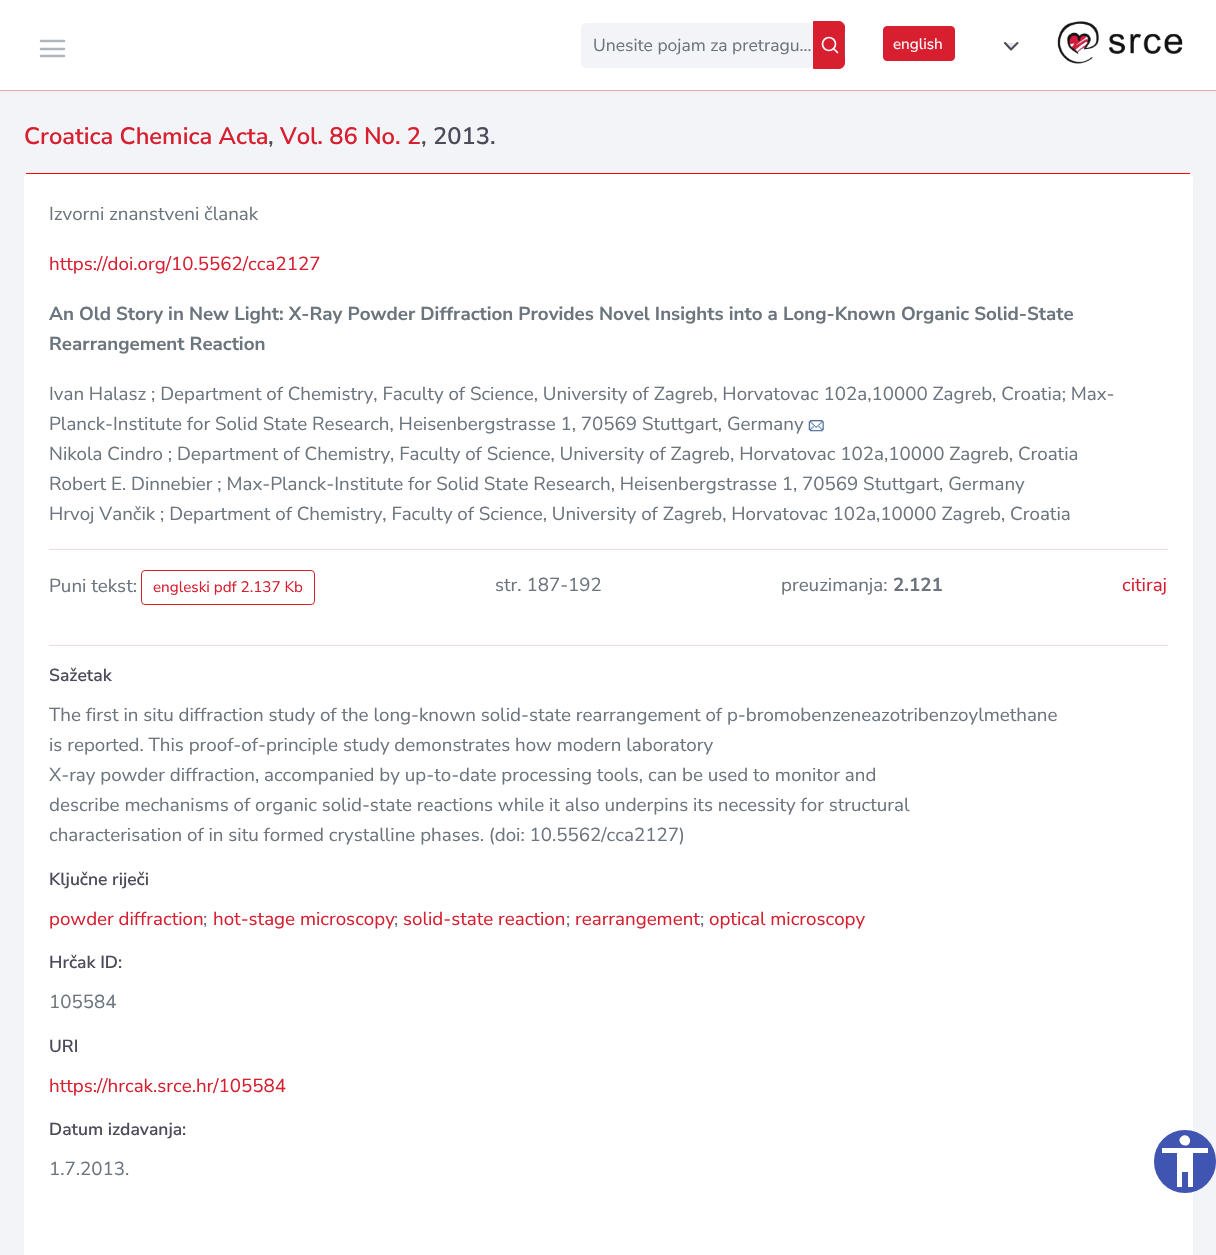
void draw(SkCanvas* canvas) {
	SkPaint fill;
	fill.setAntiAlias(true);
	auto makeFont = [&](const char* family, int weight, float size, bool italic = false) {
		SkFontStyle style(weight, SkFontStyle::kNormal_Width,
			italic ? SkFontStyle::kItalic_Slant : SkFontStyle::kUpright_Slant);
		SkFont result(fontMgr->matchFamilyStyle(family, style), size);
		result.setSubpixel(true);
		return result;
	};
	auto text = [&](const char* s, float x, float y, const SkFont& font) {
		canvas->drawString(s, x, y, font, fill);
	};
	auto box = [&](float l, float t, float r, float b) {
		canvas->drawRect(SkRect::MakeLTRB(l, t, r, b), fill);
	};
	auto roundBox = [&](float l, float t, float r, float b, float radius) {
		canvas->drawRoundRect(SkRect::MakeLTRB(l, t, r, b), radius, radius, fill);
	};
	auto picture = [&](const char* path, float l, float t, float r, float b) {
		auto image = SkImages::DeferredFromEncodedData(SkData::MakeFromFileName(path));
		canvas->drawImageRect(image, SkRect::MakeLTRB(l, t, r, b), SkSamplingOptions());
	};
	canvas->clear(0xFFF3F4F7);
	fill.setColor(0xFFF1B1B6);
	box(0, 90, 1216, 91);
	fill.setColor(0x124B4B5A);
	fill.setMaskFilter(SkMaskFilter::MakeBlur(kNormal_SkBlurStyle, 0.5f));
	canvas->drawRect(SkRect::MakeLTRB(0, 1, 1216, 91), fill);
	fill.setMaskFilter(nullptr);
	fill.setColor(0xFFFFFFFF);
	box(0, 0, 1216, 90);
	fill.setStyle(SkPaint::kStroke_Style);
	fill.setStrokeWidth(2.5f);
	fill.setStrokeCap(SkPaint::kRound_Cap);
	fill.setStrokeJoin(SkPaint::kRound_Join);
	fill.setColor(0xFFADB5BD);
	canvas->drawPath(SkPathBuilder().moveTo(41, 49).lineTo(64, 49).moveTo(41, 41).lineTo(64, 41).moveTo(41, 56).lineTo(64, 56).detach(), fill);
	fill.setStyle(SkPaint::kFill_Style);
	fill.setColor(0xFFF3F4F7);
	roundBox(581, 23, 813, 68, 5);
	fill.setColor(0xFFD81F30);
	canvas->drawPath(SkPathBuilder().moveTo(813.5f, 21.5f).lineTo(839, 21.5f).cubicTo(842, 21.5f, 844.5f, 24, 844.5f, 27).lineTo(844.5f, 63).cubicTo(844.5f, 66, 842, 68.5f, 839, 68.5f).lineTo(813.5f, 68.5f).close().detach(), fill);
	fill.setStyle(SkPaint::kStroke_Style);
	fill.setStrokeWidth(1);
	fill.setStrokeCap(SkPaint::kButt_Cap);
	fill.setStrokeJoin(SkPaint::kMiter_Join);
	canvas->drawPath(SkPathBuilder().moveTo(813.5f, 21.5f).lineTo(839, 21.5f).cubicTo(842, 21.5f, 844.5f, 24, 844.5f, 27).lineTo(844.5f, 63).cubicTo(844.5f, 66, 842, 68.5f, 839, 68.5f).lineTo(813.5f, 68.5f).close().detach(), fill);
	fill.setStyle(SkPaint::kFill_Style);
	fill.setColor(0xFFAE4350);
	box(844, 33, 845, 58);
	fill.setStyle(SkPaint::kStroke_Style);
	fill.setStrokeWidth(1.7f);
	fill.setColor(0xFFFFFFFF);
	canvas->drawCircle(829, 44, 6.5f, fill);
	fill.setStrokeCap(SkPaint::kRound_Cap);
	fill.setStrokeJoin(SkPaint::kRound_Join);
	canvas->drawPath(SkPathBuilder().moveTo(837.5f, 52.5f).lineTo(834, 49).detach(), fill);
	fill.setStyle(SkPaint::kFill_Style);
	fill.setColor(0xFFD81F30);
	canvas->drawRoundRect(SkRect::MakeLTRB(883.5f, 26.5f, 954.5f, 60.5f), 3.5f, 3.5f, fill);
	fill.setStyle(SkPaint::kStroke_Style);
	fill.setStrokeWidth(1);
	fill.setStrokeCap(SkPaint::kButt_Cap);
	fill.setStrokeJoin(SkPaint::kMiter_Join);
	canvas->drawRoundRect(SkRect::MakeLTRB(883.5f, 26.5f, 954.5f, 60.5f), 3.5f, 3.5f, fill);
	fill.setStyle(SkPaint::kFill_Style);
	fill.setColor(0xFFE9E9EB);
	canvas->drawPath(SkPathBuilder().moveTo(1005, 43).lineTo(1011, 49.5f).lineTo(1017.5f, 43).detach(), fill);
	fill.setStyle(SkPaint::kStroke_Style);
	fill.setStrokeWidth(2.1f);
	fill.setStrokeCap(SkPaint::kRound_Cap);
	fill.setStrokeJoin(SkPaint::kRound_Join);
	fill.setColor(0xFF4B4B5A);
	canvas->drawPath(SkPathBuilder().moveTo(1005, 43).lineTo(1011, 49.5f).lineTo(1017.5f, 43).detach(), fill);
	picture("image0.png", 1057, 21, 1183, 64);
	fill.setStyle(SkPaint::kFill_Style);
	fill.setColor(0x124B4B5A);
	fill.setMaskFilter(SkMaskFilter::MakeBlur(kNormal_SkBlurStyle, 0.5f));
	canvas->drawRoundRect(SkRect::MakeLTRB(24, 174, 1193, 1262), 5, 5, fill);
	fill.setMaskFilter(nullptr);
	fill.setColor(0xFFFFFFFF);
	roundBox(24, 173, 1193, 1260, 5);
	fill.setColor(0xFFFF0000);
	box(26, 173, 1190, 174);
	picture("image1.png", 808, 420, 824, 432);
	fill.setColor(0xFFF8D9DC);
	box(49, 549, 1168, 550);
	fill.setStyle(SkPaint::kStroke_Style);
	fill.setStrokeWidth(1);
	fill.setStrokeCap(SkPaint::kButt_Cap);
	fill.setStrokeJoin(SkPaint::kMiter_Join);
	fill.setColor(0xFFD81F30);
	canvas->drawRoundRect(SkRect::MakeLTRB(141.5f, 570.5f, 314.5f, 604.5f), 3.5f, 3.5f, fill);
	fill.setStyle(SkPaint::kFill_Style);
	fill.setColor(0xFFF8D9DC);
	box(49, 645, 1168, 646);
	fill.setColor(0xFF4054B2);
	roundBox(1154, 1130, 1216, 1193, 31);
	fill.setColor(0xFFFFFFFF);
	canvas->drawPath(SkPathBuilder().moveTo(1208, 1153).lineTo(1193, 1153).lineTo(1193, 1187).lineTo(1188, 1187).lineTo(1188, 1172).lineTo(1182, 1172).lineTo(1182, 1187).lineTo(1177, 1187).lineTo(1177, 1153).lineTo(1162, 1153).lineTo(1162, 1148).lineTo(1208, 1148).close().moveTo(1181, 1137).cubicTo(1186, 1132, 1193, 1139, 1189, 1144).cubicTo(1184, 1149, 1176, 1141, 1181, 1137).close().detach(), fill);
	auto font1 = makeFont("Nunito Sans", 400, 17.5f);
	fill.setColor(0xFF6C757D);
	text("Unesite pojam za pretragu...", 593, 51, font1);
	auto font2 = makeFont("Nunito Sans", 400, 15.25f);
	fill.setColor(0xFFFFFFFF);
	text("english", 893, 49, font2);
	auto font3 = makeFont("Nunito Sans", 600, 23.75f);
	fill.setColor(0xFFD81F30);
	text("Croatica Chemica Acta", 24, 144, font3);
	fill.setColor(0xFF4B4B5A);
	text(",", 268, 144, font3);
	fill.setColor(0xFFD81F30);
	text("Vol. 86 No. 2", 280, 144, font3);
	fill.setColor(0xFF4B4B5A);
	text(", 2013.", 421, 144, font3);
	auto font4 = makeFont("Nunito Sans", 400, 18.75f);
	fill.setColor(0xFF6C757D);
	text("Izvorni znanstveni članak", 49, 220, font4);
	fill.setColor(0xFFD81F30);
	text("https://doi.org/10.5562/cca2127", 49, 270, font4);
	auto font5 = makeFont("Nunito Sans", 700, 18.75f);
	fill.setColor(0xFF6C757D);
	text("An Old Story in New Light: X-Ray Powder Diffraction Provides Novel Insights into a Long-Known Organic Solid-State", 49, 320, font5);
	text("Rearrangement Reaction", 49, 350, font5);
	text("Ivan Halasz ; Department of Chemistry, Faculty of Science, University of Zagreb, Horvatovac 102a,10000 Zagreb, Croatia; Max-", 49, 400, font4);
	text("Planck-Institute for Solid State Research, Heisenbergstrasse 1, 70569 Stuttgart, Germany", 49, 430, font4);
	text("Nikola Cindro ; Department of Chemistry, Faculty of Science, University of Zagreb, Horvatovac 102a,10000 Zagreb, Croatia", 49, 460, font4);
	text("Robert E. Dinnebier ; Max-Planck-Institute for Solid State Research, Heisenbergstrasse 1, 70569 Stuttgart, Germany", 49, 490, font4);
	text("Hrvoj Vančik ; Department of Chemistry, Faculty of Science, University of Zagreb, Horvatovac 102a,10000 Zagreb, Croatia", 49, 520, font4);
	text("Puni tekst:", 49, 592, font4);
	fill.setColor(0xFFD81F30);
	text("engleski pdf 2.137 Kb", 153, 592, font2);
	fill.setColor(0xFF6C757D);
	text("str. 187-192", 495, 591, font4);
	text("preuzimanja:", 781, 591, font4);
	text("2.121", 893, 591, font5);
	fill.setColor(0xFFD81F30);
	text("citiraj", 1122, 591, font4);
	auto font6 = makeFont("Nunito Sans", 600, 17.5f);
	fill.setColor(0xFF4B4B5A);
	text("Sažetak", 49, 681, font6);
	fill.setColor(0xFF6C757D);
	text("The first in situ diffraction study of the long-known solid-state rearrangement of p-bromobenzeneazotribenzoylmethane", 49, 721, font4);
	text("is reported. This proof-of-principle study demonstrates how modern laboratory", 49, 751, font4);
	text("X-ray powder diffraction, accompanied by up-to-date processing tools, can be used to monitor and", 49, 781, font4);
	text("describe mechanisms of organic solid-state reactions while it also underpins its necessity for structural", 49, 811, font4);
	text("characterisation of in situ formed crystalline phases. (doi: 10.5562/cca2127)", 49, 841, font4);
	fill.setColor(0xFF4B4B5A);
	text("Ključne riječi", 49, 885, font6);
	fill.setColor(0xFFD81F30);
	text("powder diffraction", 49, 925, font4);
	fill.setColor(0xFF6C757D);
	text(";", 203, 925, font4);
	fill.setColor(0xFFD81F30);
	text("hot-stage microscopy", 213, 925, font4);
	fill.setColor(0xFF6C757D);
	text(";", 394, 925, font4);
	fill.setColor(0xFFD81F30);
	text("solid-state reaction", 403, 925, font4);
	fill.setColor(0xFF6C757D);
	text(";", 566, 925, font4);
	fill.setColor(0xFFD81F30);
	text("rearrangement", 575, 925, font4);
	fill.setColor(0xFF6C757D);
	text(";", 700, 925, font4);
	fill.setColor(0xFFD81F30);
	text("optical microscopy", 709, 925, font4);
	fill.setColor(0xFF4B4B5A);
	text("Hrčak ID:", 49, 968, font6);
	fill.setColor(0xFF6C757D);
	text("105584", 49, 1008, font4);
	fill.setColor(0xFF4B4B5A);
	text("URI", 49, 1052, font6);
	fill.setColor(0xFFD81F30);
	text("https://hrcak.srce.hr/105584", 49, 1092, font4);
	fill.setColor(0xFF4B4B5A);
	text("Datum izdavanja:", 49, 1135, font6);
	fill.setColor(0xFF6C757D);
	text("1.7.2013.", 49, 1175, font4);
}
